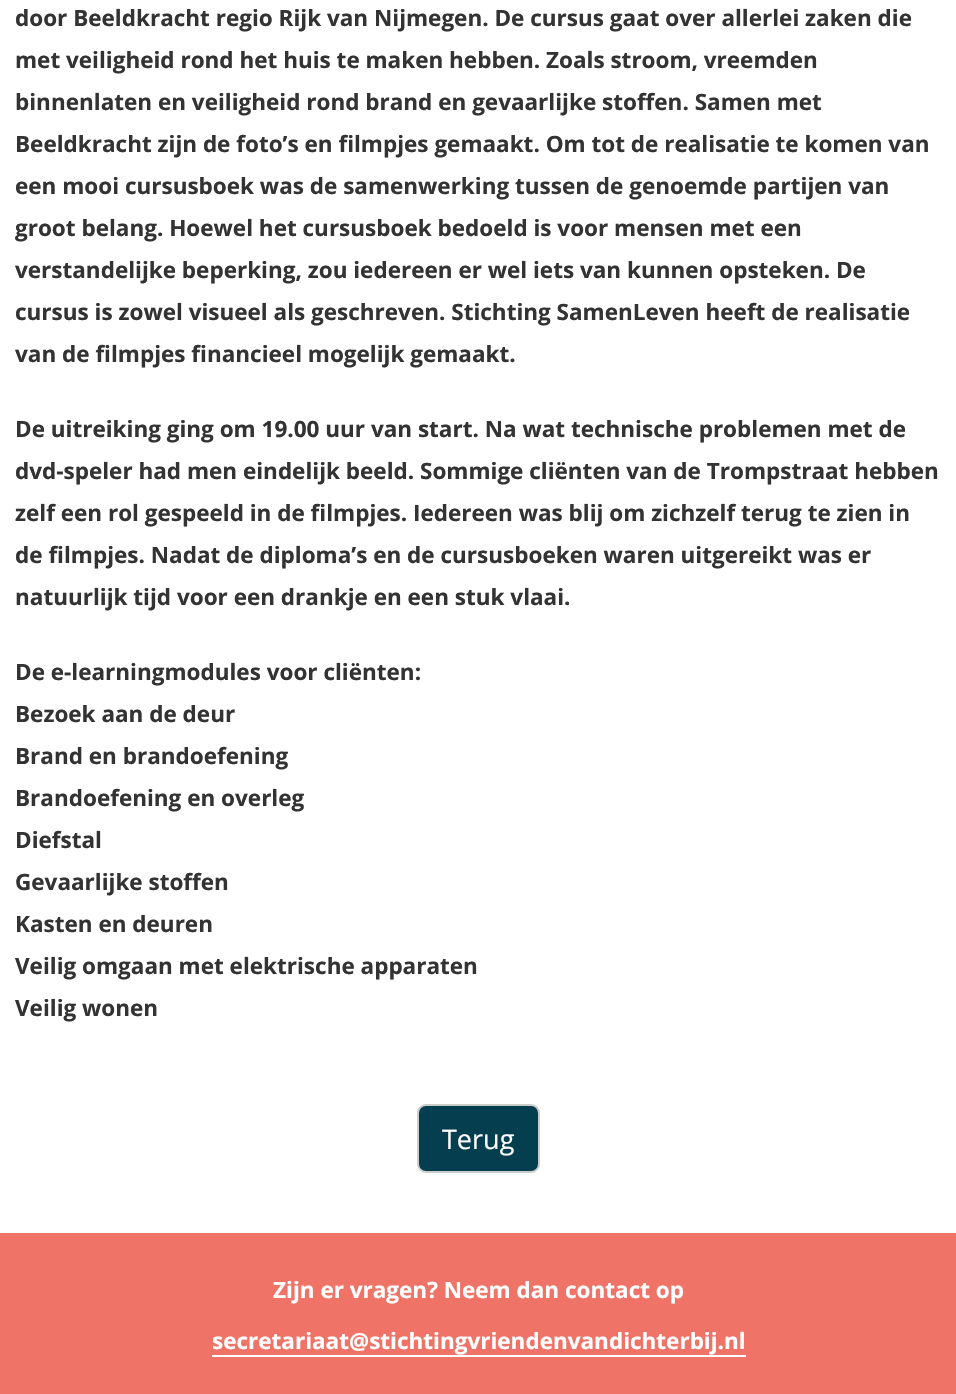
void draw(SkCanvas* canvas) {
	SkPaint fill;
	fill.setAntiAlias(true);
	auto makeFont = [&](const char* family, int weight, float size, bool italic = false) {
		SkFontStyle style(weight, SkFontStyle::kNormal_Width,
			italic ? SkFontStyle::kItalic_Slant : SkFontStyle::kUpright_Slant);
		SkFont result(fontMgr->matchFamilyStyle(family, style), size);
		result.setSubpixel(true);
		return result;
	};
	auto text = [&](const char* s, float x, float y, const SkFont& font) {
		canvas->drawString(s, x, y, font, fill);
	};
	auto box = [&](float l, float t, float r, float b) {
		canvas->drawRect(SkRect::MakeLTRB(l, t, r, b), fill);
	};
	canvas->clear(0xFFFFFFFF);
	fill.setColor(0xFF053E4F);
	canvas->drawRoundRect(SkRect::MakeLTRB(418, 1105, 539, 1172), 8, 8, fill);
	fill.setStyle(SkPaint::kStroke_Style);
	fill.setStrokeWidth(2);
	fill.setColor(0xFFCCCCCC);
	canvas->drawRoundRect(SkRect::MakeLTRB(418, 1105, 539, 1172), 8, 8, fill);
	fill.setStyle(SkPaint::kFill_Style);
	fill.setColor(0xFFEF7366);
	box(0, 1233, 956, 1394);
	fill.setColor(0xFFFFFFFF);
	box(212, 1355, 746, 1357);
	auto font1 = makeFont("Open Sans", 700, 22.5f);
	fill.setColor(0xFF333333);
	text("door Beeldkracht regio Rijk van Nijmegen. De cursus gaat over allerlei zaken die", 15, 26, font1);
	text("met veiligheid rond het huis te maken hebben. Zoals stroom, vreemden", 15, 68, font1);
	text("binnenlaten en veiligheid rond brand en gevaarlijke stoffen. Samen met", 15, 110, font1);
	text("Beeldkracht zijn de foto’s en filmpjes gemaakt. Om tot de realisatie te komen van", 15, 152, font1);
	text("een mooi cursusboek was de samenwerking tussen de genoemde partijen van", 15, 194, font1);
	text("groot belang. Hoewel het cursusboek bedoeld is voor mensen met een", 15, 236, font1);
	text("verstandelijke beperking, zou iedereen er wel iets van kunnen opsteken. De", 15, 278, font1);
	text("cursus is zowel visueel als geschreven. Stichting SamenLeven heeft de realisatie", 15, 320, font1);
	text("van de filmpjes financieel mogelijk gemaakt.", 15, 362, font1);
	text("De uitreiking ging om 19.00 uur van start. Na wat technische problemen met de", 15, 437, font1);
	text("dvd-speler had men eindelijk beeld. Sommige cliënten van de Trompstraat hebben", 15, 479, font1);
	text("zelf een rol gespeeld in de filmpjes. Iedereen was blij om zichzelf terug te zien in", 15, 521, font1);
	text("de filmpjes. Nadat de diploma’s en de cursusboeken waren uitgereikt was er", 15, 563, font1);
	text("natuurlijk tijd voor een drankje en een stuk vlaai.", 15, 605, font1);
	text("De e-learningmodules voor cliënten:", 15, 680, font1);
	text("Bezoek aan de deur", 15, 722, font1);
	text("Brand en brandoefening", 15, 764, font1);
	text("Brandoefening en overleg", 15, 806, font1);
	text("Diefstal", 15, 848, font1);
	text("Gevaarlijke stoffen", 15, 890, font1);
	text("Kasten en deuren", 15, 932, font1);
	text("Veilig omgaan met elektrische apparaten", 15, 974, font1);
	text("Veilig wonen", 15, 1016, font1);
	auto font2 = makeFont("Open Sans", 400, 27);
	fill.setColor(0xFFFFFFFF);
	text("Terug", 442, 1149, font2);
	text("Zijn er vragen? Neem dan contact op", 273, 1298, font1);
	text("secretariaat@stichtingvriendenvandichterbij.nl", 212, 1349, font1);
}
